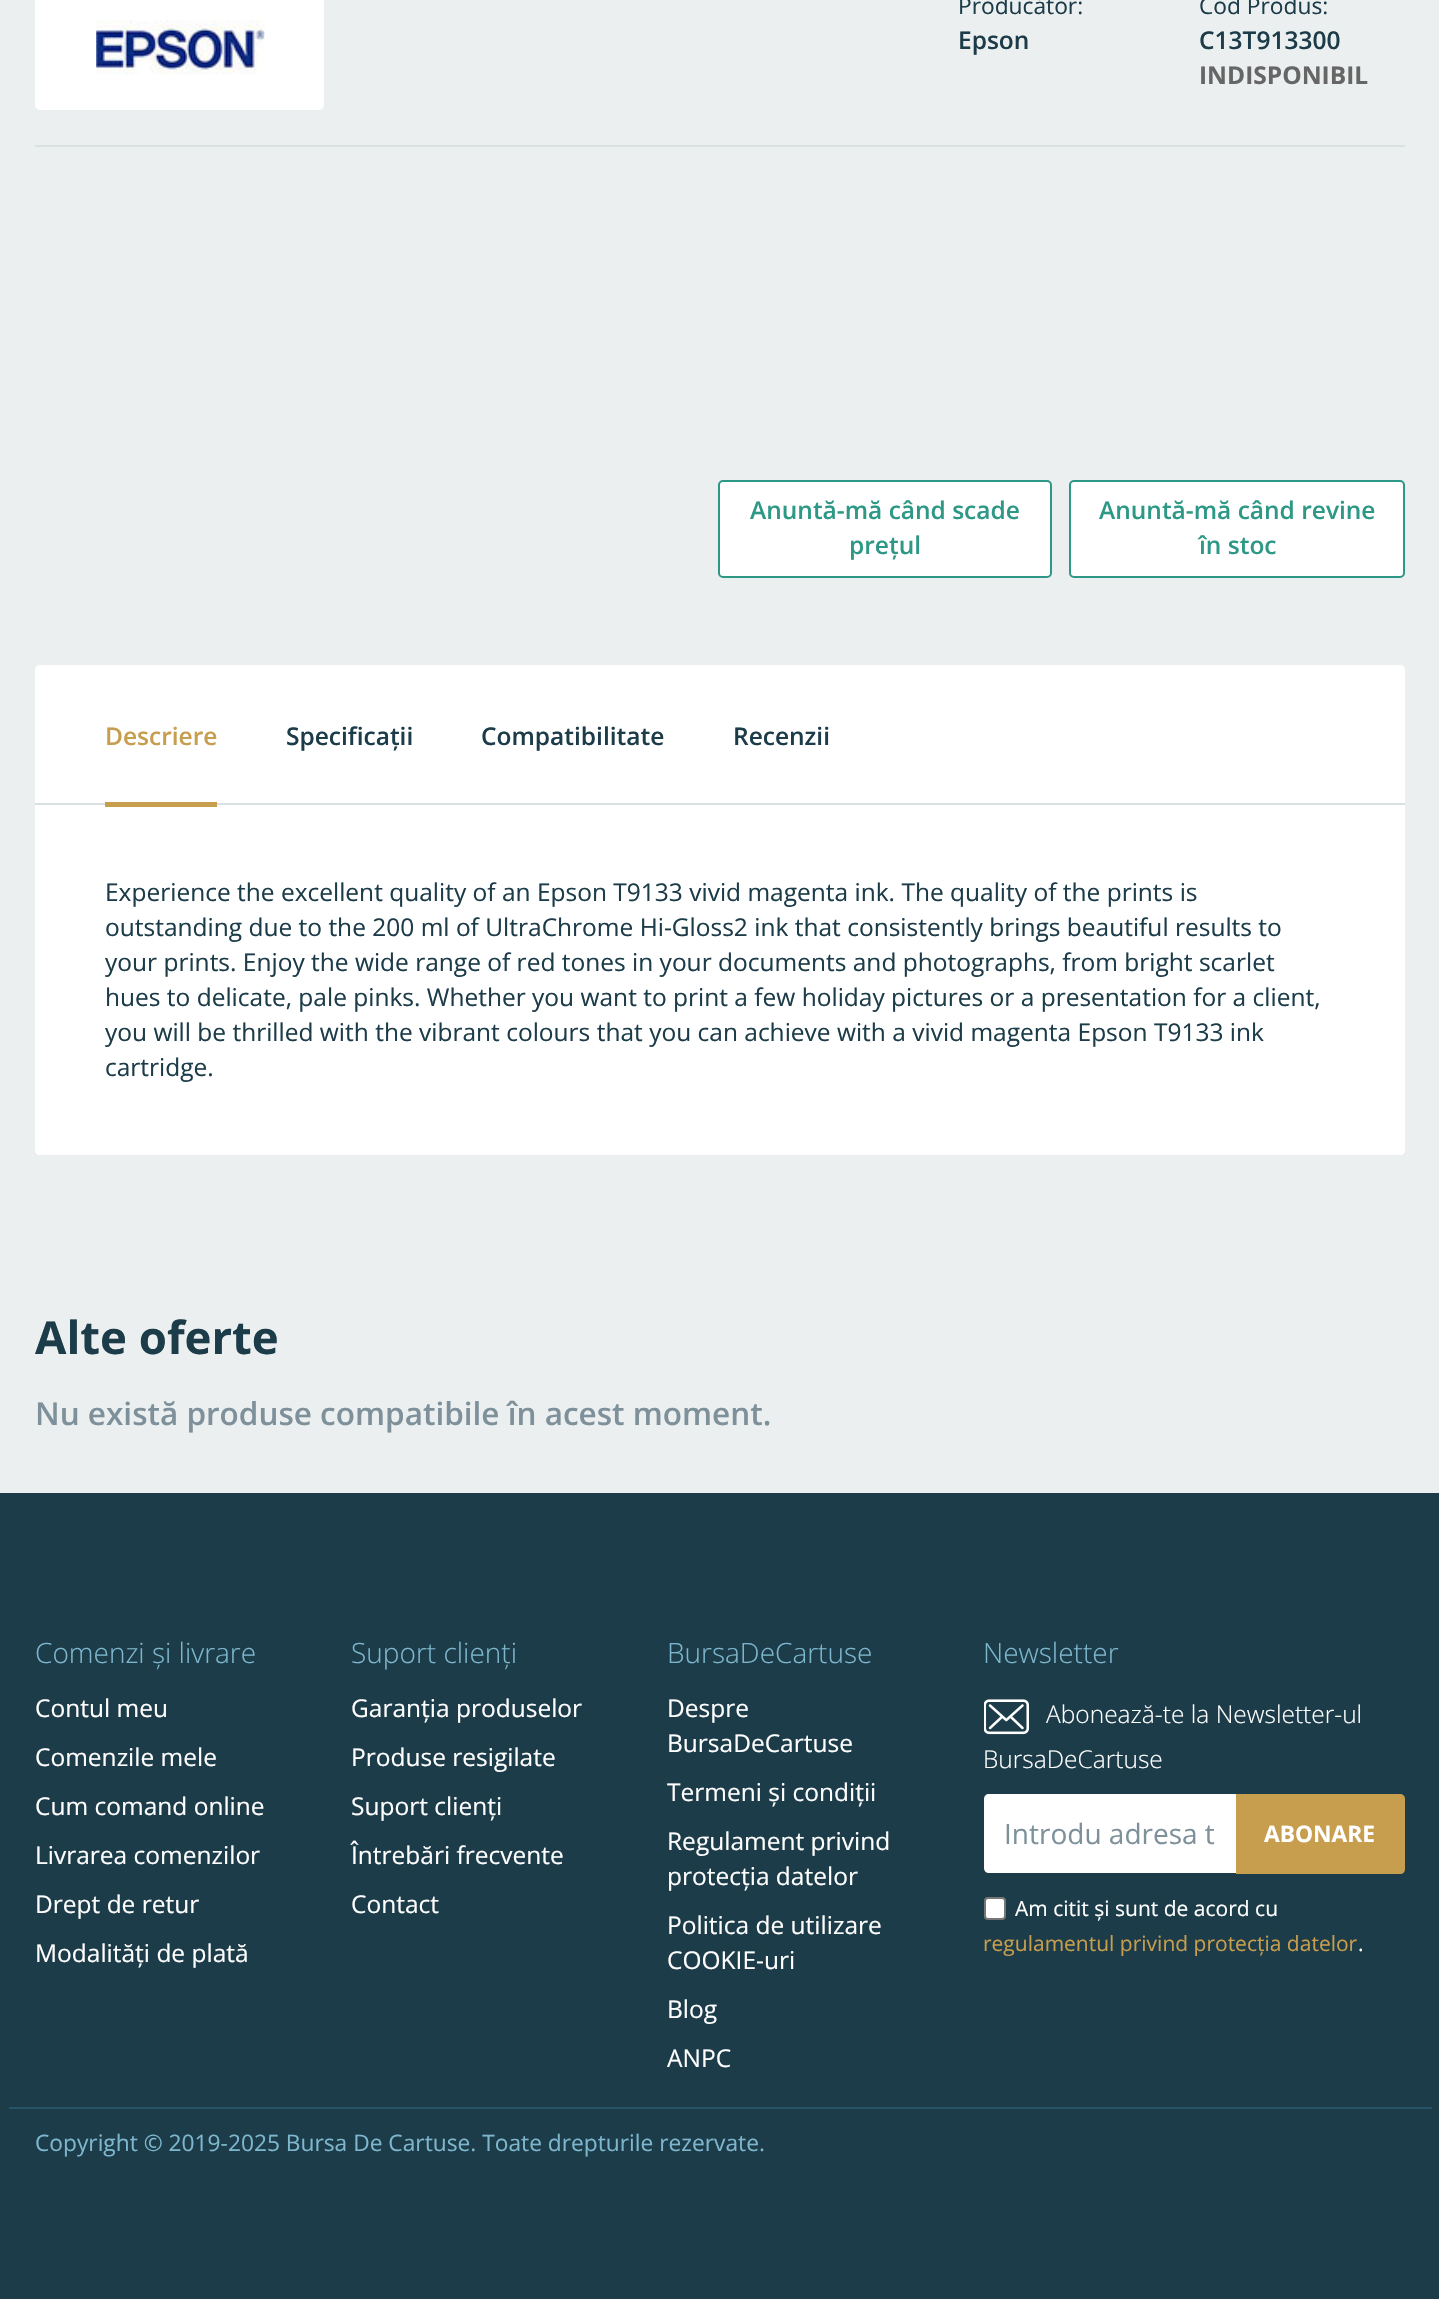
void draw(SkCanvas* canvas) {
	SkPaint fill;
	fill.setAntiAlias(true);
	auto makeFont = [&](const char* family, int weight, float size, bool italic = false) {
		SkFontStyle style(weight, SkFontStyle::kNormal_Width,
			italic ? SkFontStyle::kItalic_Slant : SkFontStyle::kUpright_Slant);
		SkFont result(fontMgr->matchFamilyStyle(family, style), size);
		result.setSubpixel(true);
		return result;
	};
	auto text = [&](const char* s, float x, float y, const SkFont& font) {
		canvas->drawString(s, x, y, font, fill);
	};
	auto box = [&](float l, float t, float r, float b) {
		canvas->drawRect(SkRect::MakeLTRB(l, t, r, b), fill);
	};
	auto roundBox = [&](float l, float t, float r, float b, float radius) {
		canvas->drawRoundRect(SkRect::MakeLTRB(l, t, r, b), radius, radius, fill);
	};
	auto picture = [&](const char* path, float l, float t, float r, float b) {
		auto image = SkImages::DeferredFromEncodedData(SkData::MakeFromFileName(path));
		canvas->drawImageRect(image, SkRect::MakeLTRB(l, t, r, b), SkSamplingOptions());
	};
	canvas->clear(0xFFECEFF0);
	fill.setColor(0xFFFFFFFF);
	roundBox(35, -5, 324, 110, 5);
	picture("image0.png", 96, 20, 265, 75);
	fill.setColor(0xFFDAE1E3);
	box(35, 145, 1405, 147);
	fill.setColor(0xFFFFFFFF);
	canvas->drawRoundRect(SkRect::MakeLTRB(719, 481, 1051, 577), 4, 4, fill);
	fill.setStyle(SkPaint::kStroke_Style);
	fill.setStrokeWidth(2);
	fill.setColor(0xFF2E9886);
	canvas->drawRoundRect(SkRect::MakeLTRB(719, 481, 1051, 577), 4, 4, fill);
	fill.setStyle(SkPaint::kFill_Style);
	fill.setColor(0xFFFFFFFF);
	canvas->drawRoundRect(SkRect::MakeLTRB(1070, 481, 1404, 577), 4, 4, fill);
	fill.setStyle(SkPaint::kStroke_Style);
	fill.setColor(0xFF2E9886);
	canvas->drawRoundRect(SkRect::MakeLTRB(1070, 481, 1404, 577), 4, 4, fill);
	fill.setStyle(SkPaint::kFill_Style);
	fill.setColor(0xFFFFFFFF);
	roundBox(35, 665, 1405, 1155, 5);
	canvas->drawPath(SkPathBuilder().moveTo(35, 803).lineTo(1405, 803).lineTo(1405, 1150).cubicTo(1405, 1153, 1403, 1155, 1400, 1155).lineTo(40, 1155).cubicTo(37, 1155, 35, 1153, 35, 1150).close().detach(), fill);
	fill.setColor(0xFFDAE1E3);
	box(35, 803, 1405, 805);
	fill.setColor(0xFFC79D4E);
	box(105, 802, 217, 807);
	fill.setColor(0xFF1C3C49);
	box(0, 1493, 1439, 2299);
	picture("image1.png", 984, 1699, 1029, 1735);
	fill.setColor(0xFFFFFFFF);
	canvas->drawPath(SkPathBuilder().moveTo(989, 1794).lineTo(1237, 1794).lineTo(1237, 1873).lineTo(989, 1873).cubicTo(986, 1873, 984, 1871, 984, 1868).lineTo(984, 1799).cubicTo(984, 1796, 986, 1794, 989, 1794).close().detach(), fill);
	fill.setColor(0xFFC79D4E);
	canvas->drawPath(SkPathBuilder().moveTo(1236, 1794).lineTo(1400, 1794).cubicTo(1403, 1794, 1405, 1796, 1405, 1799).lineTo(1405, 1869).cubicTo(1405, 1872, 1403, 1874, 1400, 1874).lineTo(1236, 1874).close().detach(), fill);
	fill.setColor(0xFFFFFFFF);
	canvas->drawRoundRect(SkRect::MakeLTRB(985, 1898, 1005, 1919), 3, 3, fill);
	fill.setStyle(SkPaint::kStroke_Style);
	fill.setColor(0xFF767676);
	canvas->drawRoundRect(SkRect::MakeLTRB(985, 1898, 1005, 1919), 3, 3, fill);
	fill.setStyle(SkPaint::kFill_Style);
	fill.setColor(0xFF275466);
	box(9, 2107, 1432, 2109);
	auto font1 = makeFont("Open Sans", 400, 22.75f);
	fill.setColor(0xFF1C3C49);
	text("Producător:", 958, 14, font1);
	auto font2 = makeFont("Open Sans", 600, 24.5f);
	text("Epson", 958, 49, font2);
	text("Cod Produs:", 1199, 14, font1);
	text("C13T913300", 1199, 49, font2);
	auto font3 = makeFont("Open Sans", 700, 24.5f);
	fill.setColor(0xFF666666);
	text("INDISPONIBIL", 1199, 84, font3);
	fill.setColor(0xFF2E9886);
	text("Anuntă-mă când scade", 750, 519, font2);
	text("prețul", 849, 554, font2);
	text("Anuntă-mă când revine", 1099, 519, font2);
	text("în stoc", 1199, 554, font2);
	fill.setColor(0xFFC79D4E);
	text("Descriere", 105, 745, font2);
	fill.setColor(0xFF1C3C49);
	text("Specificații", 286, 745, font2);
	text("Compatibilitate", 481, 745, font2);
	text("Recenzii", 733, 745, font2);
	auto font4 = makeFont("Open Sans", 400, 24.5f);
	text("Experience the excellent quality of an Epson T9133 vivid magenta ink. The quality of the prints is", 105, 901, font4);
	text("outstanding due to the 200 ml of UltraChrome Hi-Gloss2 ink that consistently brings beautiful results to", 105, 936, font4);
	text("your prints. Enjoy the wide range of red tones in your documents and photographs, from bright scarlet", 105, 971, font4);
	text("hues to delicate, pale pinks. Whether you want to print a few holiday pictures or a presentation for a client,", 105, 1006, font4);
	text("you will be thrilled with the vibrant colours that you can achieve with a vivid magenta Epson T9133 ink", 105, 1041, font4);
	text("cartridge.", 105, 1076, font4);
	auto font5 = makeFont("Open Sans", 700, 45.5f);
	text("Alte oferte", 35, 1354, font5);
	auto font6 = makeFont("Open Sans", 600, 31.5f);
	fill.setColor(0xFF7E919B);
	text("Nu există produse compatibile în acest moment.", 35, 1425, font6);
	auto font7 = makeFont("Open Sans", 300, 28);
	fill.setColor(0xFF7DB6CD);
	text("Comenzi și livrare", 35, 1663, font7);
	fill.setColor(0xFFFFFFFF);
	text("Contul meu", 35, 1717, font4);
	text("Comenzile mele", 35, 1766, font4);
	text("Cum comand online", 35, 1815, font4);
	text("Livrarea comenzilor", 35, 1864, font4);
	text("Drept de retur", 35, 1913, font4);
	text("Modalități de plată", 35, 1962, font4);
	fill.setColor(0xFF7DB6CD);
	text("Suport clienți", 351, 1663, font7);
	fill.setColor(0xFFFFFFFF);
	text("Garanția produselor", 351, 1717, font4);
	text("Produse resigilate", 351, 1766, font4);
	text("Suport clienți", 351, 1815, font4);
	text("Întrebări frecvente", 351, 1864, font4);
	text("Contact", 351, 1913, font4);
	fill.setColor(0xFF7DB6CD);
	text("BursaDeCartuse", 667, 1663, font7);
	fill.setColor(0xFFFFFFFF);
	text("Despre", 667, 1717, font4);
	text("BursaDeCartuse", 667, 1752, font4);
	text("Termeni și condiții", 667, 1801, font4);
	text("Regulament privind", 667, 1850, font4);
	text("protecția datelor", 667, 1885, font4);
	text("Politica de utilizare", 667, 1934, font4);
	text("COOKIE-uri", 667, 1969, font4);
	text("Blog", 667, 2018, font4);
	text("ANPC", 667, 2067, font4);
	fill.setColor(0xFF7DB6CD);
	text("Newsletter", 983, 1663, font7);
	auto font8 = makeFont("Open Sans", 300, 24.5f);
	fill.setColor(0xFFFFFFFF);
	text("Abonează-te la Newsletter-ul", 1046, 1723, font8);
	text("BursaDeCartuse", 983, 1768, font8);
	auto font9 = makeFont("Open Sans", 400, 28);
	fill.setColor(0xFF7E919B);
	text("Introdu adresa t", 1004, 1844, font9);
	auto font10 = makeFont("Open Sans", 700, 22.75f);
	fill.setColor(0xFFFFFFFF);
	text("ABONARE", 1264, 1842, font10);
	auto font11 = makeFont("Open Sans", 400, 21);
	text("Am citit și sunt de acord cu", 1015, 1916, font11);
	fill.setColor(0xFFC79D4E);
	text("regulamentul privind protecția datelor", 983, 1951, font11);
	fill.setColor(0xFFFFFFFF);
	text(".", 1358, 1951, font11);
	fill.setColor(0xFF7DB6CD);
	text("Copyright © 2019-2025 Bursa De Cartuse. Toate drepturile rezervate.", 35, 2151, font1);
}
